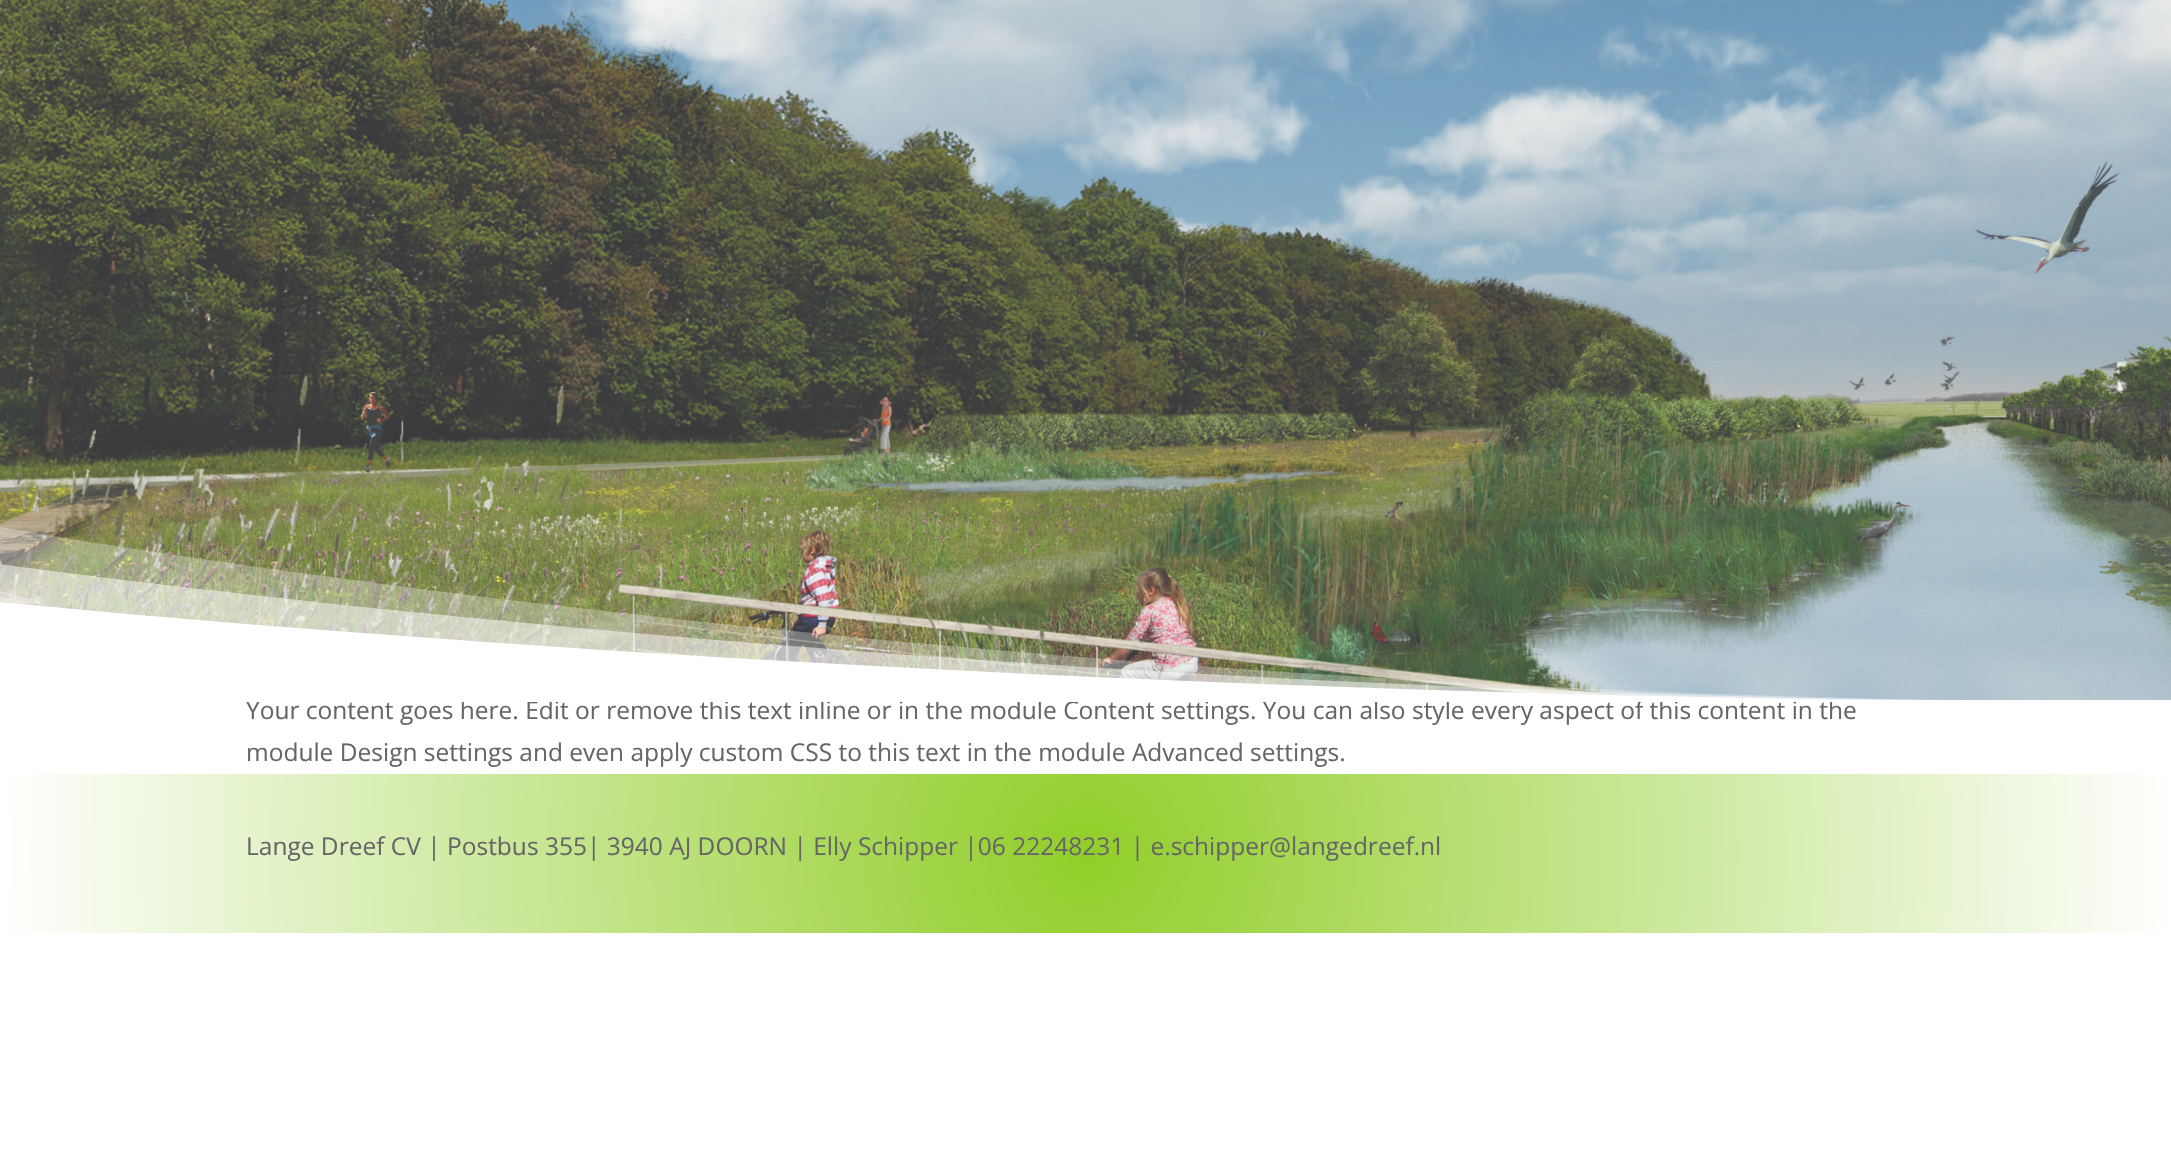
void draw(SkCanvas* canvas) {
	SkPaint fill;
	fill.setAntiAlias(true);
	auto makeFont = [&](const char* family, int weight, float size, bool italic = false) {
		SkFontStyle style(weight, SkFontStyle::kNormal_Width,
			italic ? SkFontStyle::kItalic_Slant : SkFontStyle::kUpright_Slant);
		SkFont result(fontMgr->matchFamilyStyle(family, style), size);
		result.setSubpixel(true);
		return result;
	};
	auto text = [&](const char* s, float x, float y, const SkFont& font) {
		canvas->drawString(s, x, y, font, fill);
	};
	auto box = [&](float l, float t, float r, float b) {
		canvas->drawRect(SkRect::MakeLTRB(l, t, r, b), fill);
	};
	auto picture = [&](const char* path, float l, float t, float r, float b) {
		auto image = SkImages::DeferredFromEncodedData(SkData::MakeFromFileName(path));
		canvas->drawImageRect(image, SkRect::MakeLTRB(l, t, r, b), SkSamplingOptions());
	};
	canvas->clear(0xFFFFFFFF);
	picture("image0.png", 0, 0, 2171, 700);
	{
		const SkColor colors[] = {0xFF91CE29, 0xFFFFFFFF};
		const float stops[] = {0, 1};
		fill.setShader(SkGradientShader::MakeRadial({1086, 853}, 1089, colors, stops, 2, SkTileMode::kClamp));
		fill.setAlpha(255);
	}
	box(6, 774, 2166, 933);
	auto font1 = makeFont("Open Sans", 400, 24.5f);
	fill.setShader(nullptr);
	fill.setColor(0xFF666666);
	text("Your content goes here. Edit or remove this text inline or in the module Content settings. You can also style every aspect of this content in the", 246, 719, font1);
	fill.setColor(0x4DFFFFFF);
	canvas->drawPath(SkPathBuilder().moveTo(0, 702).lineTo(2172, 702).cubicTo(972, 702, 0, 527, 0, 527).close().detach(), fill);
	fill.setColor(0x80FFFFFF);
	canvas->drawPath(SkPathBuilder().moveTo(0, 702).lineTo(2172, 702).cubicTo(972, 702, 0, 564, 0, 564).close().detach(), fill);
	fill.setColor(0xFFFFFFFF);
	canvas->drawPath(SkPathBuilder().moveTo(0, 702).lineTo(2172, 702).cubicTo(972, 702, 0, 602, 0, 602).close().detach(), fill);
	fill.setColor(0xFF666666);
	text("module Design settings and even apply custom CSS to this text in the module Advanced settings.", 246, 761, font1);
	text("Lange Dreef CV | Postbus 355| 3940 AJ DOORN | Elly Schipper |06 22248231 | e.schipper@langedreef.nl", 246, 855, font1);
}
